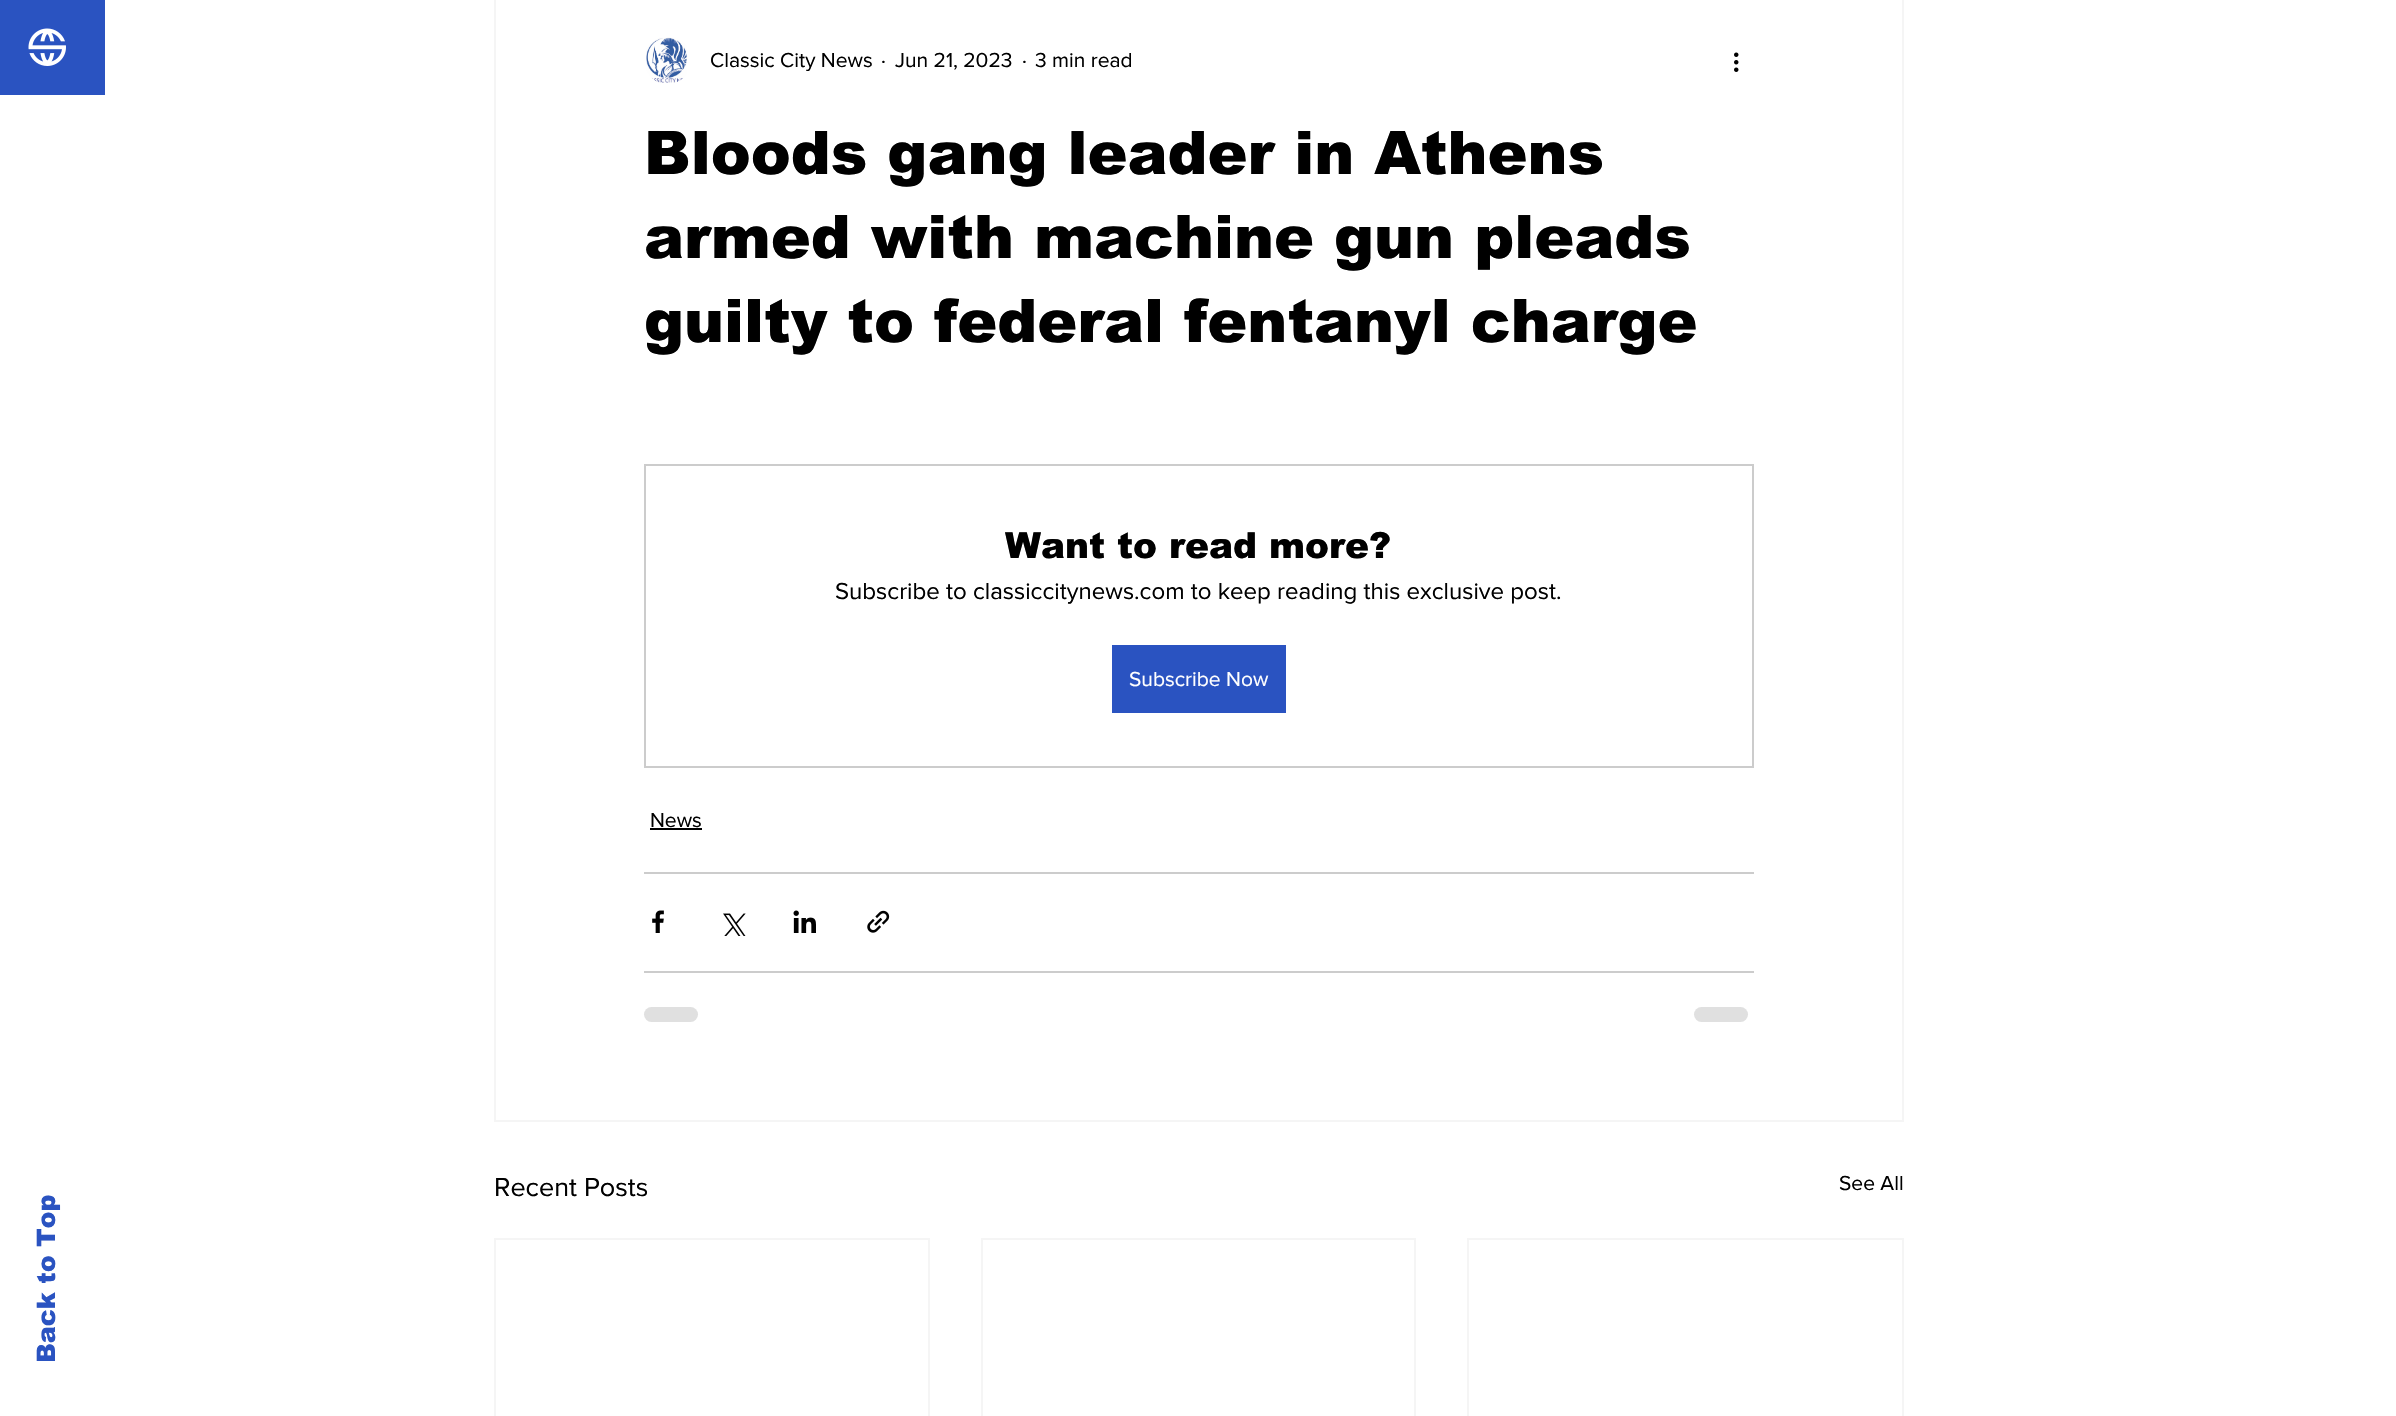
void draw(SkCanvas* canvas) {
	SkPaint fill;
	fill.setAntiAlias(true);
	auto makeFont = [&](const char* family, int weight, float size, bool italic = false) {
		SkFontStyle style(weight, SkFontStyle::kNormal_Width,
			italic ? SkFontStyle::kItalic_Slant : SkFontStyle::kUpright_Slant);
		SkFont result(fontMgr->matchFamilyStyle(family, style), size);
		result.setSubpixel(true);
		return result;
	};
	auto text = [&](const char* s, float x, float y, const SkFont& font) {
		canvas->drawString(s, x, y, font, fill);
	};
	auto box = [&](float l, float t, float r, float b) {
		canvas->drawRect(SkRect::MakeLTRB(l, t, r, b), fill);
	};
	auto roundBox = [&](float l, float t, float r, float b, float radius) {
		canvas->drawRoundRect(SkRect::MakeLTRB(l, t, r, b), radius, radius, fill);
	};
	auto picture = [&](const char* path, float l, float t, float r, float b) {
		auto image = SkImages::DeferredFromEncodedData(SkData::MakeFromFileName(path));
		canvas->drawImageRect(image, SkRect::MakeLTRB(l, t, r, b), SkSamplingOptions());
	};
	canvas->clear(0xFFFFFFFF);
	fill.setColor(0xFF2A53C1);
	box(0, 0, 105, 95);
	picture("image0.png", 28, 28, 66, 66);
	fill.setStyle(SkPaint::kStroke_Style);
	fill.setStrokeWidth(2);
	fill.setColor(0xFFF5F5F5);
	canvas->drawRect(SkRect::MakeLTRB(495, -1, 1903, 1121), fill);
	picture("image1.png", 646, 37, 687, 83);
	picture("image2.png", 1734, 52, 1739, 72);
	fill.setColor(0xFFCCCCCC);
	canvas->drawRect(SkRect::MakeLTRB(645, 465, 1753, 767), fill);
	fill.setStyle(SkPaint::kFill_Style);
	fill.setColor(0xFF2A53C1);
	box(1112, 645, 1286, 713);
	fill.setColor(0xFF000000);
	box(650, 828, 702, 830);
	fill.setColor(0xFFCCCCCC);
	box(644, 872, 1754, 874);
	picture("image3.png", 652, 910, 664, 933);
	picture("image4.png", 723, 913, 746, 936);
	picture("image5.png", 793, 910, 816, 933);
	picture("image6.png", 867, 910, 890, 933);
	box(644, 971, 1754, 973);
	fill.setColor(0xFFE0E0E0);
	roundBox(644, 1007, 698, 1022, 7.5f);
	roundBox(1694, 1007, 1748, 1022, 7.5f);
	fill.setStyle(SkPaint::kStroke_Style);
	fill.setColor(0xFFF5F5F5);
	canvas->drawRect(SkRect::MakeLTRB(495, 1239, 929, 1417), fill);
	canvas->drawRect(SkRect::MakeLTRB(982, 1239, 1415, 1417), fill);
	canvas->drawRect(SkRect::MakeLTRB(1468, 1239, 1903, 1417), fill);
	auto font1 = makeFont("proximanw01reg", 400, 21);
	fill.setStyle(SkPaint::kFill_Style);
	fill.setColor(0xFF000000);
	text("Classic City News", 710, 67, font1);
	text("·", 881, 67, font1);
	text("Jun 21, 2023", 895, 67, font1);
	text("·", 1022, 67, font1);
	text("3 min read", 1035, 67, font1);
	auto font2 = makeFont("arial", 900, 60);
	text("Bloods gang leader in Athens", 644, 174, font2);
	text("armed with machine gun pleads", 644, 258, font2);
	text("guilty to federal fentanyl charge", 644, 342, font2);
	auto font3 = makeFont("arial", 900, 36);
	text("Want to read more?", 1005, 558, font3);
	auto font4 = makeFont("proximanw01reg", 400, 24);
	text("Subscribe to classiccitynews.com to keep reading this exclusive post.", 835, 599, font4);
	fill.setColor(0xFFFFFFFF);
	text("Subscribe Now", 1129, 686, font1);
	fill.setColor(0xFF000000);
	text("News", 650, 827, font1);
	auto font5 = makeFont("proximanw01reg", 400, 27);
	text("Recent Posts", 494, 1196, font5);
	text("See All", 1839, 1190, font1);
	auto font6 = makeFont("arial", 900, 25.5f);
	fill.setColor(0xFF2A53C1);
	canvas->save();
	canvas->rotate(-90, 55, 1363);
	text("Back to Top", 55, 1363, font6);
	canvas->restore();
}
